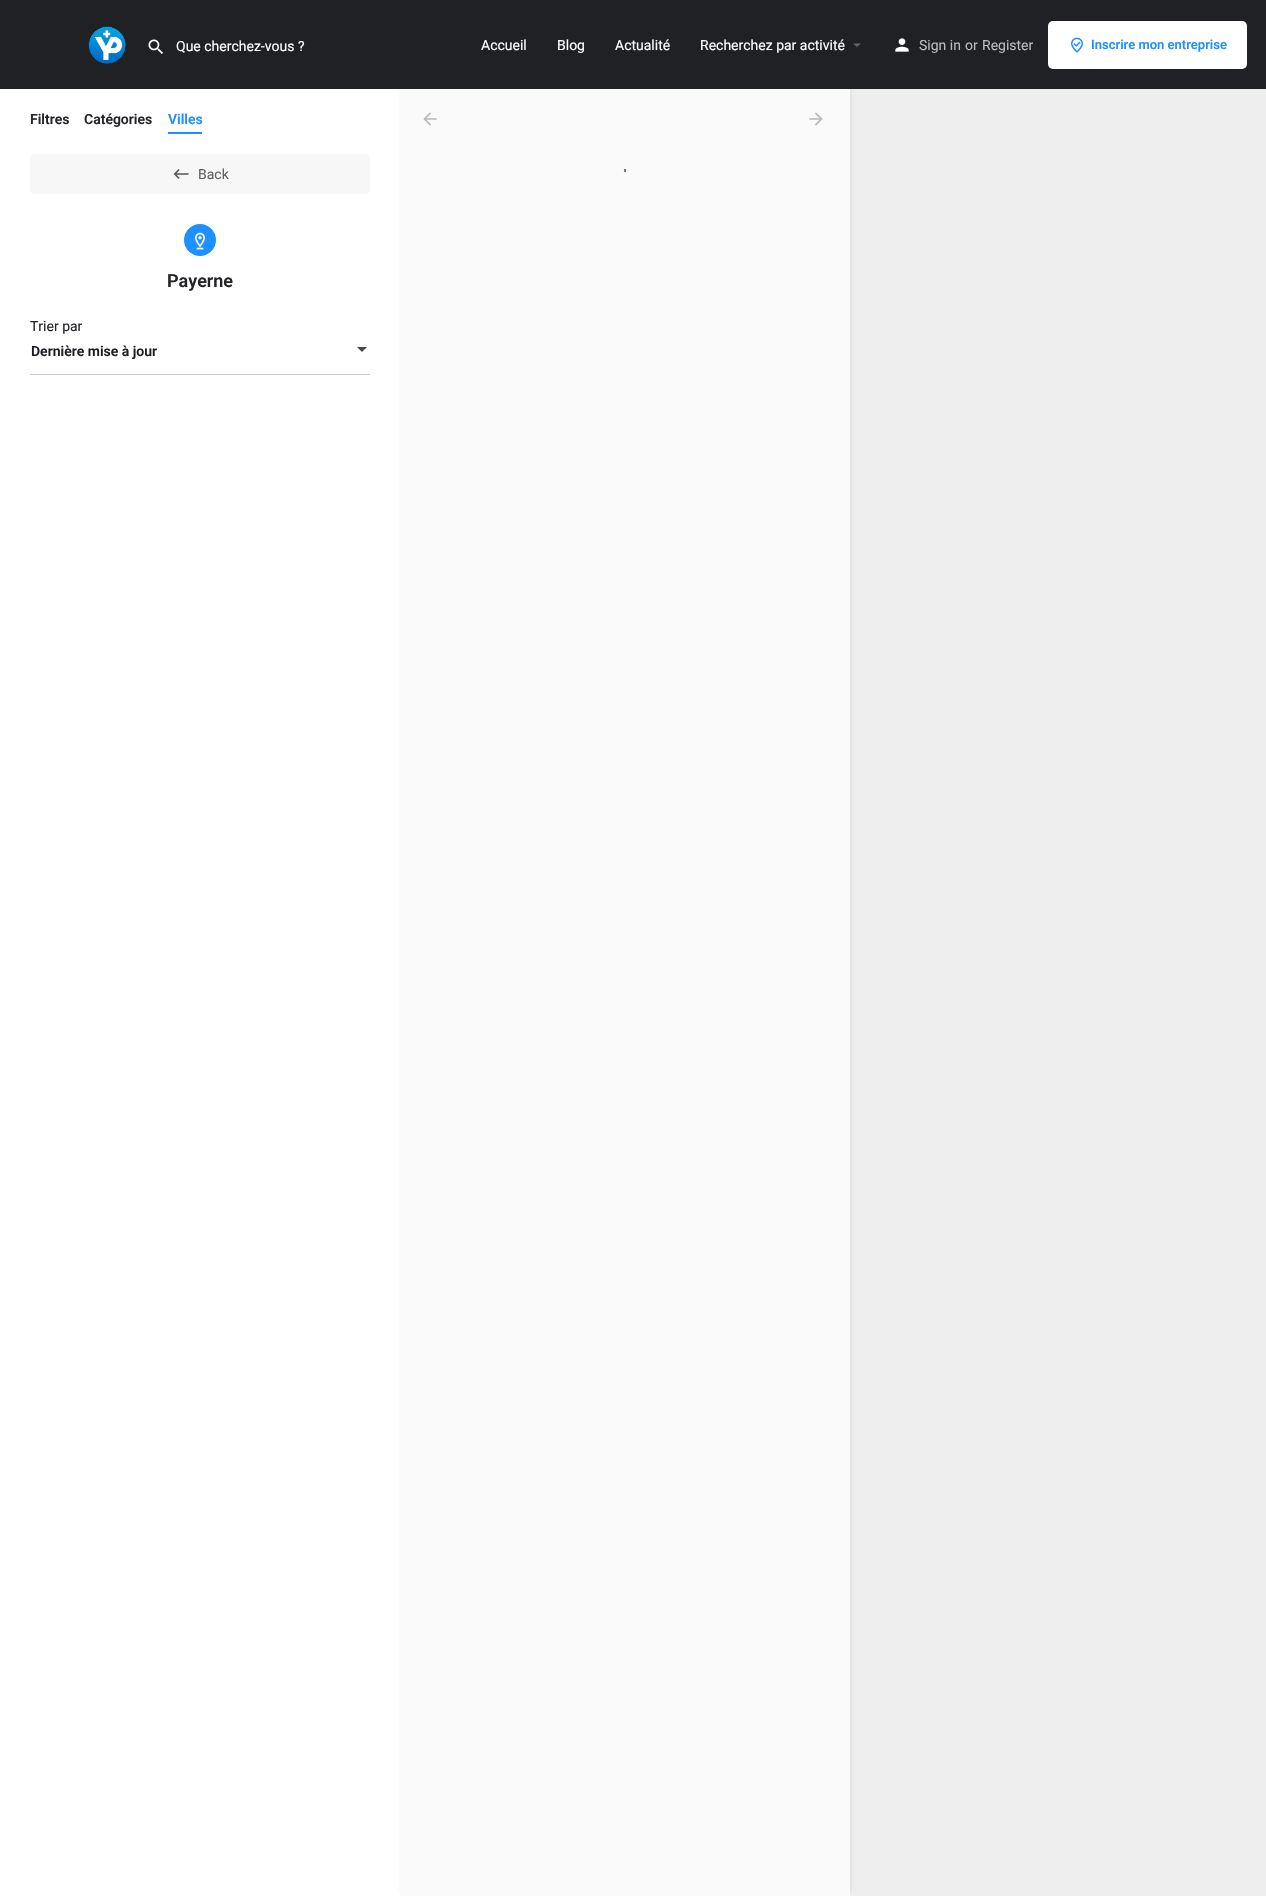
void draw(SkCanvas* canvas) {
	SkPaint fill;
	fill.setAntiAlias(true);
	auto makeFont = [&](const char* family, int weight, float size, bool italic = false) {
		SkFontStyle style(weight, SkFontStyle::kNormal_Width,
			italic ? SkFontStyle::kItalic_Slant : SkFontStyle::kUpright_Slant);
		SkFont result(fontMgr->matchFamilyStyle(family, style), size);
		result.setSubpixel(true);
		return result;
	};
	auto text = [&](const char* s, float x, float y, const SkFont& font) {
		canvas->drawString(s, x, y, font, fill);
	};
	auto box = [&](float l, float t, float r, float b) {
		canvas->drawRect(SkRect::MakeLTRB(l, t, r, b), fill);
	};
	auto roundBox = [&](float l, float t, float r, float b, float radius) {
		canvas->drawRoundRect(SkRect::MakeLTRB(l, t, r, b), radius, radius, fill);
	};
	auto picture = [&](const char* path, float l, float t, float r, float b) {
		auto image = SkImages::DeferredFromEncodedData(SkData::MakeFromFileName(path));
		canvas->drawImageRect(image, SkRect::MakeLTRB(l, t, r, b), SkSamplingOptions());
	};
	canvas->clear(0xFFFFFFFF);
	fill.setColor(0xFFEEEEEE);
	box(850, 89, 1266, 1896);
	fill.setColor(0x12000000);
	fill.setMaskFilter(SkMaskFilter::MakeBlur(kNormal_SkBlurStyle, 2));
	canvas->drawRect(SkRect::MakeLTRB(401, 85, 851, 1892), fill);
	fill.setMaskFilter(nullptr);
	fill.setColor(0xFF202125);
	box(0, 0, 1266, 89);
	picture("image0.png", 88, 26, 126, 64);
	picture("image1.png", 148, 39, 163, 54);
	fill.setColor(0xFF636466);
	canvas->drawPath(SkPathBuilder().moveTo(853, 43.5f).lineTo(861, 43.5f).lineTo(857, 47).close().detach(), fill);
	picture("image2.png", 895, 38, 909, 52);
	fill.setColor(0xFFFFFFFF);
	roundBox(1048, 21, 1247, 69, 5);
	picture("image3.png", 1071, 37, 1083, 53);
	fill.setColor(0xFF1E90FF);
	box(168, 132, 202, 134);
	fill.setColor(0xFFF6F7F6);
	roundBox(30, 154, 370, 194, 5);
	picture("image4.png", 173, 169, 189, 179);
	fill.setColor(0xFF1E90FF);
	canvas->drawCircle(200, 240, 16, fill);
	picture("image5.png", 195, 232, 205, 250);
	fill.setColor(0xFFCCCCCC);
	box(30, 374, 370, 375);
	fill.setColor(0xFF484848);
	canvas->drawPath(SkPathBuilder().moveTo(357, 347).lineTo(367, 347).lineTo(362, 352).close().detach(), fill);
	fill.setColor(0xFFFAFAFA);
	box(400, 89, 850, 1896);
	picture("image6.png", 423, 112, 437, 126);
	picture("image7.png", 809, 112, 823, 126);
	canvas->save();
	canvas->clipRect(SkRect::MakeLTRB(611, 169, 625, 197));
	fill.setStyle(SkPaint::kStroke_Style);
	fill.setStrokeWidth(3);
	fill.setColor(0xFF777777);
	canvas->drawPath(SkPathBuilder().moveTo(624, 170.5f).cubicTo(640.5f, 169, 642.5f, 194, 626, 195.5f).detach(), fill);
	canvas->restore();
	canvas->save();
	canvas->clipRect(SkRect::MakeLTRB(624, 169, 626, 197));
	canvas->drawPath(SkPathBuilder().moveTo(616, 192).cubicTo(613, 189, 612, 184.5f, 612.5f, 180.5f).cubicTo(615.5f, 166, 637.5f, 168, 637.5f, 183).cubicTo(637.5f, 186.5f, 636, 189.5f, 634, 192).detach(), fill);
	canvas->restore();
	canvas->save();
	canvas->clipRect(SkRect::MakeLTRB(625, 169, 639, 197));
	canvas->drawPath(SkPathBuilder().moveTo(624, 195.5f).cubicTo(607.5f, 194, 609.5f, 169, 626, 170.5f).detach(), fill);
	canvas->restore();
	auto font1 = makeFont("Roboto", 400, 14);
	fill.setStyle(SkPaint::kFill_Style);
	fill.setColor(0xFFFFFFFF);
	text("Que cherchez-vous ?", 176, 51, font1);
	text("Accueil", 481, 50, font1);
	text("Blog", 557, 50, font1);
	text("Actualité", 615, 50, font1);
	text("Recherchez par activité", 700, 50, font1);
	fill.setColor(0xFFBCBCBE);
	text("Sign in", 919, 50, font1);
	text("or", 965, 50, font1);
	text("Register", 982, 50, font1);
	auto font2 = makeFont("Roboto", 600, 13);
	fill.setColor(0xFF1E90FF);
	text("Inscrire mon entreprise", 1091, 49, font2);
	auto font3 = makeFont("Roboto", 600, 14);
	fill.setColor(0xFF242429);
	text("Filtres", 30, 124, font3);
	text("Catégories", 84, 124, font3);
	fill.setColor(0xFF1E90FF);
	text("Villes", 168, 124, font3);
	fill.setColor(0xFF616165);
	text("Back", 198, 179, font1);
	auto font4 = makeFont("Roboto", 600, 18);
	fill.setColor(0xFF242429);
	text("Payerne", 167, 287, font4);
	text("Trier par", 30, 331, font1);
	fill.setColor(0xFF1D1D23);
	text("Dernière mise à jour", 31, 356, font3);
}
